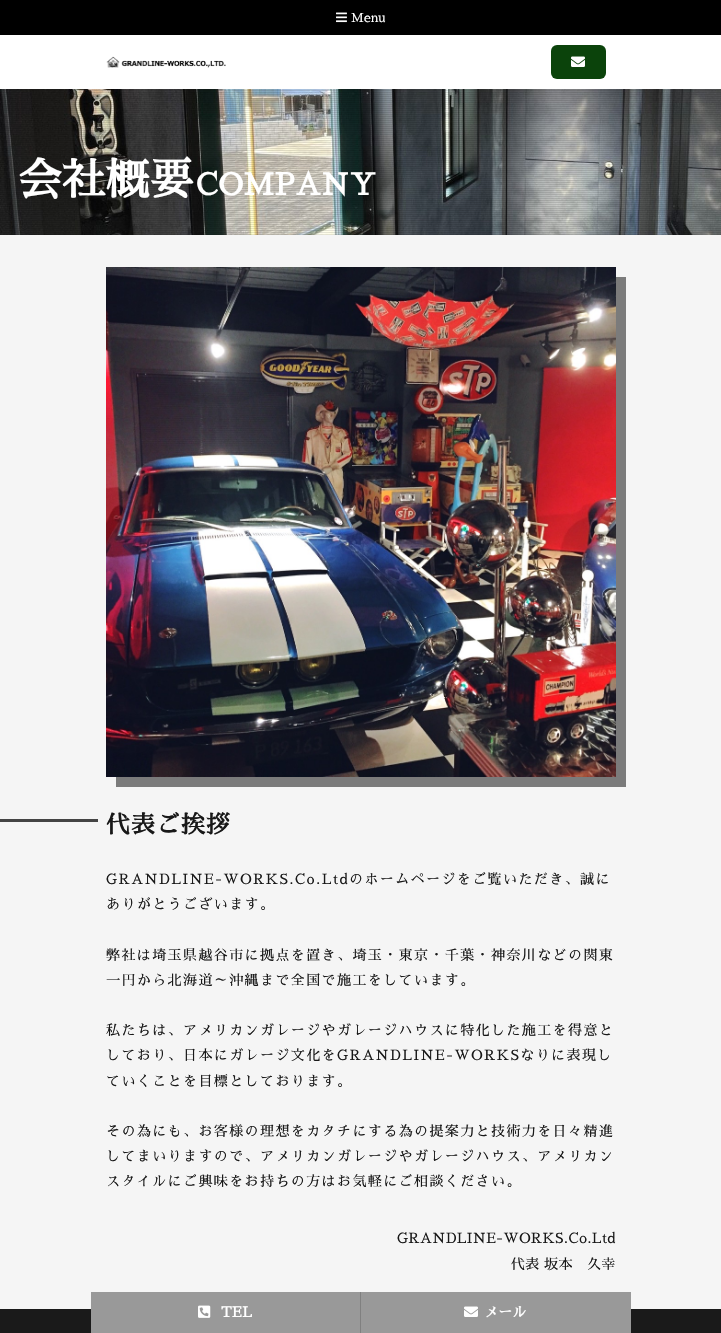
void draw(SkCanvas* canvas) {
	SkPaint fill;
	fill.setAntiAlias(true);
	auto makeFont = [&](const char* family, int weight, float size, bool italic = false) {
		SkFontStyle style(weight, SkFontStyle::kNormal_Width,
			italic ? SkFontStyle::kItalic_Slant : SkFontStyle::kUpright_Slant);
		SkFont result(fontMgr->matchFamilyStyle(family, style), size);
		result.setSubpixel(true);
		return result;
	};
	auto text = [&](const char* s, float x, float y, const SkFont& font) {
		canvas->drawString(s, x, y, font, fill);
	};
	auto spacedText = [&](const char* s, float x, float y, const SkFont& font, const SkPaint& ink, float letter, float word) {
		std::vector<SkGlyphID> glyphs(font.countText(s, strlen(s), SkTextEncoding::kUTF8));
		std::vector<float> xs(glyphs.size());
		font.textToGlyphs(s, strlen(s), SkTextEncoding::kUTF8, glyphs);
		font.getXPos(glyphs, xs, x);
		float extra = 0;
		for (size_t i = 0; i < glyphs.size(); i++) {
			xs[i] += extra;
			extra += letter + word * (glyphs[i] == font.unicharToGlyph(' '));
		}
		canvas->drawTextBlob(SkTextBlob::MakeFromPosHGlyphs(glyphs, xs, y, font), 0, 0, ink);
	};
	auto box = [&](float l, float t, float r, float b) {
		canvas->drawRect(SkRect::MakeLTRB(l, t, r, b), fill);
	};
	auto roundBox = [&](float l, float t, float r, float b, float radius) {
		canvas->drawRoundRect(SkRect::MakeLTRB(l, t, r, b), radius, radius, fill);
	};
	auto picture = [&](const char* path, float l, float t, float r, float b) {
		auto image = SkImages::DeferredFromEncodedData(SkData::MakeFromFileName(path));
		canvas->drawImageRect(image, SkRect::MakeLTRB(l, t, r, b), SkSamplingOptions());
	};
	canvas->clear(0xFFF5F5F5);
	fill.setColor(0xFFFFFFFF);
	box(0, 35, 721, 89);
	fill.setColor(0xFF000000);
	box(0, 0, 721, 35);
	picture("image0.png", 336, 12, 347, 23);
	picture("image1.png", 106, 56, 226, 68);
	fill.setColor(0xFF0B430B);
	roundBox(551, 45, 606, 79, 6);
	picture("image2.png", 571, 56, 585, 67);
	picture("image3.png", 0, 89, 721, 235);
	picture("image4.png", 0, 90, 721, 235);
	fill.setColor(0xFF7B7B7B);
	canvas->drawPath(SkPathBuilder().moveTo(116, 777).lineTo(116, 787).lineTo(626, 787).lineTo(626, 277).lineTo(616, 277).lineTo(616, 777).close().detach(), fill);
	picture("image5.png", 106, 267, 616, 777);
	fill.setColor(0xFF444444);
	box(0, 819, 98, 822);
	fill.setColor(0xFF1A1A1A);
	box(0, 1309, 721, 1333);
	fill.setColor(0xFF999999);
	box(91, 1292, 360, 1333);
	fill.setColor(0xFF808080);
	box(360, 1292, 361, 1333);
	picture("image6.png", 198, 1305, 211, 1318);
	fill.setColor(0xFF999999);
	box(361, 1292, 631, 1333);
	picture("image7.png", 464, 1306, 478, 1317);
	auto font1 = makeFont("Sawarabi Mincho", 400, 12.5f);
	fill.setColor(0xFFFFFFFF);
	text("Menu", 351, 22, font1);
	auto font2 = makeFont("Sawarabi Mincho", 700, 43.5f);
	spacedText("会社概要", 18, 195, font2, fill, 0.3f, 0);
	auto font3 = makeFont("Sawarabi Mincho", 700, 30);
	spacedText("COMPANY", 196, 195, font3, fill, 0.3f, 0);
	auto font4 = makeFont("Sawarabi Mincho", 700, 24);
	fill.setColor(0xFF181818);
	spacedText("代表ご挨拶", 106, 833, font4, fill, 1, 0);
	auto font5 = makeFont("Sawarabi Mincho", 400, 14);
	spacedText("GRANDLINE-WORKS.Co.Ltdのホームページをご覧いただき、誠に", 106, 884, font5, fill, 1.4f, 0);
	spacedText("ありがとうございます。", 106, 909, font5, fill, 1.4f, 0);
	spacedText("弊社は埼玉県越谷市に拠点を置き、埼玉・東京・千葉・神奈川などの関東", 106, 960, font5, fill, 1.4f, 0);
	spacedText("一円から北海道～沖縄まで全国で施工をしています。", 106, 985, font5, fill, 1.4f, 0);
	spacedText("私たちは、アメリカンガレージやガレージハウスに特化した施工を得意と", 106, 1035, font5, fill, 1.4f, 0);
	spacedText("しており、日本にガレージ文化をGRANDLINE-WORKSなりに表現し", 106, 1060, font5, fill, 1.4f, 0);
	spacedText("ていくことを目標としております。", 106, 1086, font5, fill, 1.4f, 0);
	spacedText("その為にも、お客様の理想をカタチにする為の提案力と技術力を日々精進", 106, 1136, font5, fill, 1.4f, 0);
	spacedText("してまいりますので、アメリカンガレージやガレージハウス、アメリカン", 106, 1161, font5, fill, 1.4f, 0);
	spacedText("スタイルにご興味をお持ちの方はお気軽にご相談ください。", 106, 1186, font5, fill, 1.4f, 0);
	spacedText("GRANDLINE-WORKS.Co.Ltd", 397, 1243, font5, fill, 0.3f, 0);
	spacedText("代表 坂本　久幸", 511, 1269, font5, fill, 0.3f, 0);
	auto font6 = makeFont("Sawarabi Mincho", 700, 14);
	fill.setColor(0xFFFFFFFF);
	spacedText("TEL", 221, 1317, font6, fill, 0.3f, 0);
	spacedText("メール", 484, 1317, font6, fill, 0.3f, 0);
}
